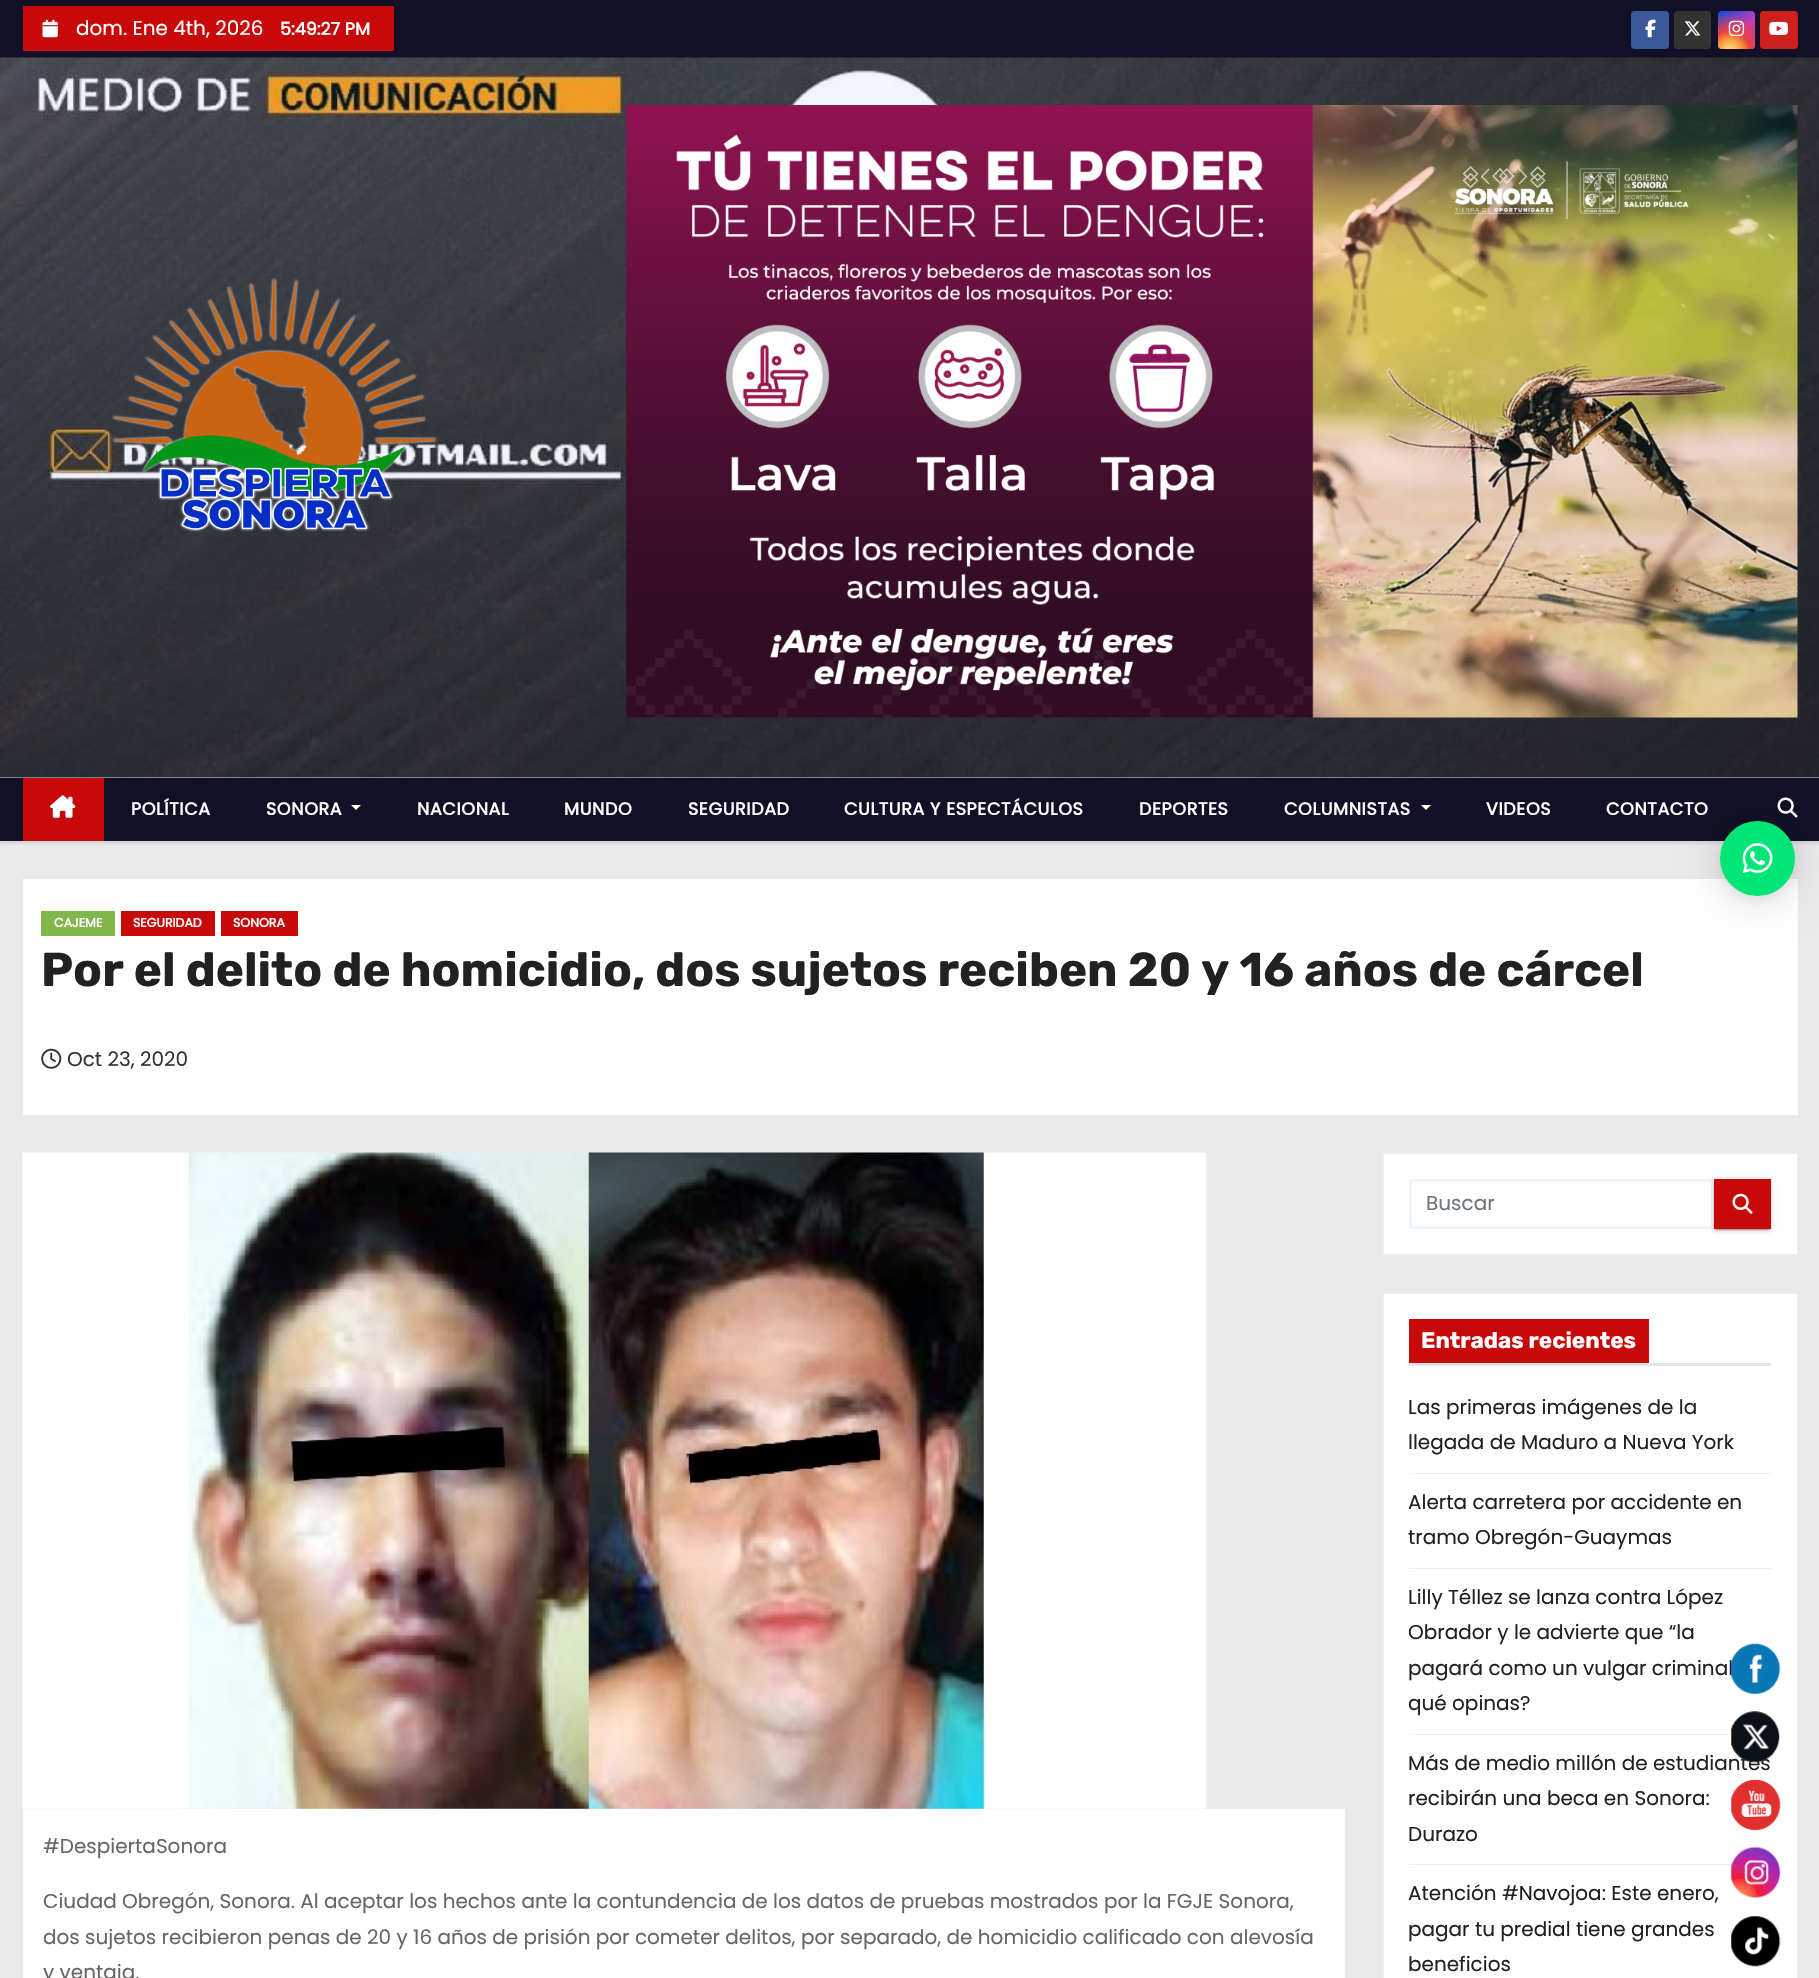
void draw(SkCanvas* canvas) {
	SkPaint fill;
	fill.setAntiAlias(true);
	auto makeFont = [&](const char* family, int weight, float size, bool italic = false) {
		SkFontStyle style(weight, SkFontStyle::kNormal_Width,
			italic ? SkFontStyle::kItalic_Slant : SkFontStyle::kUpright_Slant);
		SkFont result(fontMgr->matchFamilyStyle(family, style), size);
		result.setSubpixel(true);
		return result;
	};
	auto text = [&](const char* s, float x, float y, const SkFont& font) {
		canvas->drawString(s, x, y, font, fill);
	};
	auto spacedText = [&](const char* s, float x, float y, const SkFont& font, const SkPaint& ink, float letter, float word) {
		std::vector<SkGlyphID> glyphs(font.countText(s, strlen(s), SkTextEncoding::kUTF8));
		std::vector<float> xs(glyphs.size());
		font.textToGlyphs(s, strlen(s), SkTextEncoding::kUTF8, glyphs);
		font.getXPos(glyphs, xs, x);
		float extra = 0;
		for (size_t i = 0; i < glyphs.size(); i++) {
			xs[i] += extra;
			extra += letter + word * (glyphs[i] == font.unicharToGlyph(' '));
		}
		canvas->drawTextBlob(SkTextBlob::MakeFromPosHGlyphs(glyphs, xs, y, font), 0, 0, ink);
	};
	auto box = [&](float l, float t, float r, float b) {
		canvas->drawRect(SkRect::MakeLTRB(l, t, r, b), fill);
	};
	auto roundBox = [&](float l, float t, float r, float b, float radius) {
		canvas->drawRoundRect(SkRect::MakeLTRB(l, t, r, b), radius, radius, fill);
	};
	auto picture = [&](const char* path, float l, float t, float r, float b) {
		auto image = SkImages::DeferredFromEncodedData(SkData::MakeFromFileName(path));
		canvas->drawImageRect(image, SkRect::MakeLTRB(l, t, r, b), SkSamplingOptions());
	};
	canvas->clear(0xFFEAEAEA);
	fill.setColor(0xFFDFE1E8);
	box(0, 777, 1819, 778);
	fill.setColor(0xFF121026);
	box(0, 0, 1819, 58);
	fill.setColor(0xFFC70909);
	box(23, 6, 394, 51);
	picture("image0.png", 42, 19, 58, 38);
	fill.setColor(0xFF3B5998);
	roundBox(1631, 11, 1669, 49, 4);
	picture("image1.png", 1645, 19, 1656, 38);
	fill.setColor(0xFF333333);
	roundBox(1674, 11, 1711, 49, 4);
	picture("image2.png", 1684, 21, 1701, 36);
	{
		const SkColor colors[] = {0xFF234BD7, 0xFFC33CBE};
		const float stops[] = {0.12f, 0.58f};
		const SkPoint ends[] = {{1718, 11}, {1755, 49}};
		fill.setShader(SkGradientShader::MakeLinear(ends, colors, stops, 2, SkTileMode::kClamp));
		fill.setAlpha(255);
	}
	roundBox(1718, 11, 1755, 49, 4);
	{
		const SkColor colors[] = {0xFFFFE17D, 0xFFFFCD69, 0xFFFA9137, 0xFFEB4141, 0x00EB4141};
		const float stops[] = {0, 0.1f, 0.28f, 0.42f, 0.82f};
		fill.setShader(SkGradientShader::MakeRadial({1730, 51}, 47, colors, stops, 5, SkTileMode::kClamp));
		fill.setAlpha(255);
	}
	roundBox(1718, 11, 1755, 49, 4);
	picture("image3.png", 1728, 20, 1745, 37);
	fill.setShader(nullptr);
	fill.setColor(0xFFCD201F);
	roundBox(1760, 11, 1798, 49, 4);
	picture("image4.png", 1769, 21, 1788, 35);
	picture("image5.png", 0, 57, 1819, 778);
	picture("image6.png", 112, 278, 437, 532);
	picture("image7.png", 626, 105, 1798, 718);
	fill.setColor(0x14000000);
	fill.setMaskFilter(SkMaskFilter::MakeBlur(kNormal_SkBlurStyle, 1));
	canvas->drawRect(SkRect::MakeLTRB(0, 780, 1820, 844), fill);
	fill.setMaskFilter(nullptr);
	fill.setColor(0xFF121026);
	box(0, 778, 1819, 841);
	fill.setColor(0xFFC70909);
	box(23, 778, 104, 841);
	picture("image8.png", 50, 795, 76, 818);
	fill.setColor(0xFFFFFFFF);
	canvas->drawPath(SkPathBuilder().moveTo(351, 805).lineTo(361, 805).lineTo(356, 810).close().detach(), fill);
	canvas->drawPath(SkPathBuilder().moveTo(1421, 805).lineTo(1431, 805).lineTo(1426, 810).close().detach(), fill);
	picture("image9.png", 1777, 797, 1798, 818);
	box(23, 879, 1798, 1115);
	fill.setColor(0xFF82B74B);
	box(41, 911, 115, 936);
	fill.setColor(0xFFC70909);
	box(121, 911, 215, 936);
	box(221, 911, 298, 936);
	picture("image10.png", 41, 1048, 62, 1069);
	picture("image11.png", 22, 1152, 1207, 1809);
	fill.setColor(0xFFFFFFFF);
	box(23, 1809, 1345, 1978);
	canvas->drawRect(SkRect::MakeLTRB(1383.5f, 1153.5f, 1797.5f, 1254.5f), fill);
	fill.setStyle(SkPaint::kStroke_Style);
	fill.setStrokeWidth(1);
	fill.setColor(0xFFEEEEEE);
	canvas->drawRect(SkRect::MakeLTRB(1383.5f, 1153.5f, 1797.5f, 1254.5f), fill);
	fill.setStrokeWidth(3);
	fill.setColor(0xFFEEF3FB);
	canvas->drawRect(SkRect::MakeLTRB(1410.5f, 1180.5f, 1712.5f, 1227.5f), fill);
	fill.setStyle(SkPaint::kFill_Style);
	fill.setColor(0x1F000000);
	fill.setMaskFilter(SkMaskFilter::MakeBlur(kNormal_SkBlurStyle, 3));
	canvas->drawRect(SkRect::MakeLTRB(1714, 1180, 1771, 1230), fill);
	fill.setMaskFilter(nullptr);
	fill.setColor(0x33000000);
	fill.setMaskFilter(SkMaskFilter::MakeBlur(kNormal_SkBlurStyle, 0.5f));
	canvas->drawRect(SkRect::MakeLTRB(1716, 1185, 1769, 1230), fill);
	fill.setMaskFilter(nullptr);
	fill.setColor(0x24000000);
	fill.setMaskFilter(SkMaskFilter::MakeBlur(kNormal_SkBlurStyle, 1));
	canvas->drawRect(SkRect::MakeLTRB(1714, 1181, 1771, 1231), fill);
	fill.setMaskFilter(nullptr);
	fill.setColor(0xFFC70909);
	box(1714, 1179, 1771, 1229);
	picture("image12.png", 1732, 1193, 1753, 1214);
	fill.setColor(0xFFFFFFFF);
	canvas->drawRect(SkRect::MakeLTRB(1383.5f, 1293.5f, 1797.5f, 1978.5f), fill);
	fill.setStyle(SkPaint::kStroke_Style);
	fill.setStrokeWidth(1);
	fill.setColor(0xFFEEEEEE);
	canvas->drawRect(SkRect::MakeLTRB(1383.5f, 1293.5f, 1797.5f, 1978.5f), fill);
	fill.setStyle(SkPaint::kFill_Style);
	fill.setColor(0xFFE4E4E4);
	box(1409, 1363, 1771, 1366);
	fill.setColor(0xFFC70909);
	box(1409, 1319, 1649, 1363);
	fill.setColor(0xFFEEEEEE);
	box(1409, 1473, 1771, 1474);
	box(1409, 1568, 1771, 1569);
	box(1409, 1734, 1732, 1735);
	box(1409, 1864, 1733, 1865);
	fill.setColor(0x29000000);
	fill.setMaskFilter(SkMaskFilter::MakeBlur(kNormal_SkBlurStyle, 20));
	canvas->drawRoundRect(SkRect::MakeLTRB(1720, 824, 1795, 899), 37.5f, 37.5f, fill);
	fill.setMaskFilter(nullptr);
	fill.setColor(0x0F000000);
	fill.setMaskFilter(SkMaskFilter::MakeBlur(kNormal_SkBlurStyle, 4));
	canvas->drawRoundRect(SkRect::MakeLTRB(1720, 823, 1795, 898), 37.5f, 37.5f, fill);
	fill.setMaskFilter(nullptr);
	fill.setColor(0xFF00E676);
	canvas->drawCircle(1757.5f, 858.5f, 37.5f, fill);
	picture("image13.png", 1742, 843, 1773, 874);
	picture("image16.png", 1731, 1780, 1781, 1830);
	picture("image17.png", 1731, 1847, 1781, 1898);
	picture("image18.png", 1731, 1916, 1781, 1967);
	auto font1 = makeFont("Poppins", 400, 20);
	fill.setColor(0xFFFFFFFF);
	text("dom. Ene 4th, 2026", 76, 35, font1);
	auto font2 = makeFont("Poppins", 700, 17.5f);
	text("5:49:27 PM", 280, 35, font2);
	spacedText("POLÍTICA", 131, 815, font2, fill, 0.6f, 0);
	spacedText("SONORA", 266, 815, font2, fill, 0.6f, 0);
	spacedText("NACIONAL", 417, 815, font2, fill, 0.6f, 0);
	spacedText("MUNDO", 564, 815, font2, fill, 0.6f, 0);
	spacedText("SEGURIDAD", 688, 815, font2, fill, 0.6f, 0);
	spacedText("CULTURA Y ESPECTÁCULOS", 844, 815, font2, fill, 0.6f, 0);
	spacedText("DEPORTES", 1139, 815, font2, fill, 0.6f, 0);
	spacedText("COLUMNISTAS", 1284, 815, font2, fill, 0.6f, 0);
	spacedText("VIDEOS", 1486, 815, font2, fill, 0.6f, 0);
	spacedText("CONTACTO", 1606, 815, font2, fill, 0.6f, 0);
	auto font3 = makeFont("Poppins", 700, 12.5f);
	text("CAJEME", 54, 927, font3);
	text("SEGURIDAD", 133, 927, font3);
	text("SONORA", 233, 927, font3);
	auto font4 = makeFont("Rubik", 700, 47.5f);
	fill.setColor(0xFF212121);
	text("Por el delito de homicidio, dos sujetos reciben 20 y 16 años de cárcel", 41, 986, font4);
	fill.setColor(0xFF333333);
	text("Oct 23, 2020", 67, 1066, font1);
	fill.setColor(0xFF666666);
	text("#DespiertaSonora", 43, 1853, font1);
	text("Ciudad Obregón, Sonora. Al aceptar los hechos ante la contundencia de los datos de pruebas mostrados por la FGJE Sonora,", 43, 1908, font1);
	text("dos sujetos recibieron penas de 20 y 16 años de prisión por cometer delitos, por separado, de homicidio calificado con alevosía", 43, 1944, font1);
	text("y ventaja.", 43, 1979, font1);
	fill.setColor(0xFF6C757D);
	text("Buscar", 1426, 1210, font1);
	auto font5 = makeFont("Rubik", 700, 22.5f);
	fill.setColor(0xFFFFFFFF);
	text("Entradas recientes", 1421, 1348, font5);
	fill.setColor(0xFF212121);
	text("Las primeras imágenes de la", 1408, 1414, font1);
	text("llegada de Maduro a Nueva York", 1408, 1449, font1);
	text("Alerta carretera por accidente en", 1408, 1509, font1);
	text("tramo Obregón-Guaymas", 1408, 1544, font1);
	text("Lilly Téllez se lanza contra López", 1408, 1604, font1);
	text("Obrador y le advierte que “la", 1408, 1639, font1);
	text("pagará como un vulgar criminal", 1408, 1675, font1);
	text("qué opinas?", 1408, 1710, font1);
	text("Más de medio millón de estudiantes", 1408, 1770, font1);
	text("recibirán una beca en Sonora:", 1408, 1805, font1);
	text("Durazo", 1408, 1841, font1);
	text("Atención #Navojoa: Este enero,", 1408, 1900, font1);
	text("pagar tu predial tiene grandes", 1408, 1936, font1);
	text("beneficios", 1408, 1971, font1);
	picture("image14.png", 1731, 1643, 1781, 1694);
	picture("image15.png", 1731, 1711, 1780, 1763);
}
